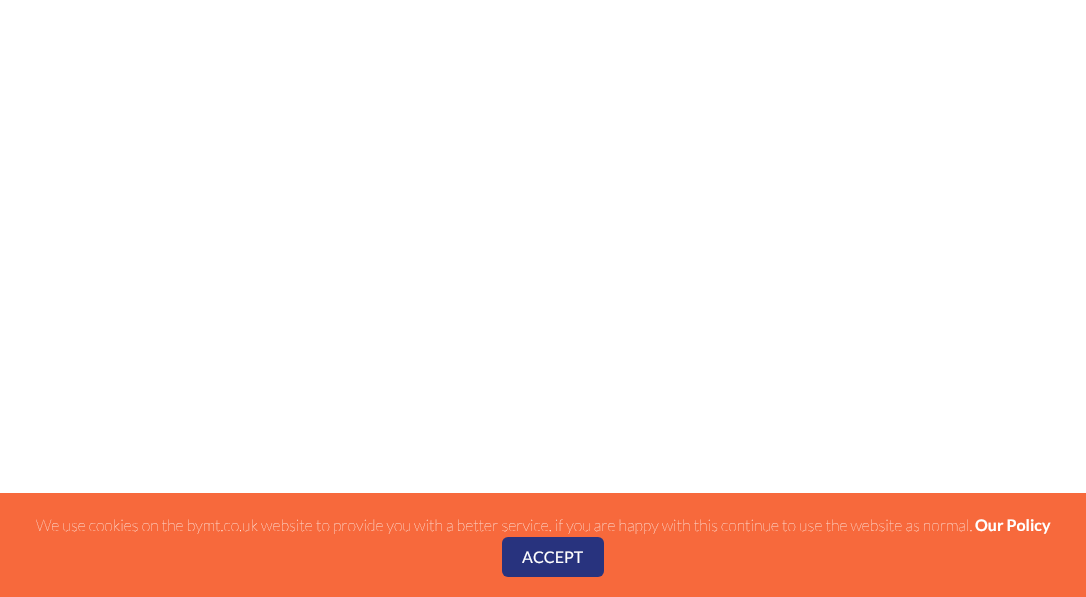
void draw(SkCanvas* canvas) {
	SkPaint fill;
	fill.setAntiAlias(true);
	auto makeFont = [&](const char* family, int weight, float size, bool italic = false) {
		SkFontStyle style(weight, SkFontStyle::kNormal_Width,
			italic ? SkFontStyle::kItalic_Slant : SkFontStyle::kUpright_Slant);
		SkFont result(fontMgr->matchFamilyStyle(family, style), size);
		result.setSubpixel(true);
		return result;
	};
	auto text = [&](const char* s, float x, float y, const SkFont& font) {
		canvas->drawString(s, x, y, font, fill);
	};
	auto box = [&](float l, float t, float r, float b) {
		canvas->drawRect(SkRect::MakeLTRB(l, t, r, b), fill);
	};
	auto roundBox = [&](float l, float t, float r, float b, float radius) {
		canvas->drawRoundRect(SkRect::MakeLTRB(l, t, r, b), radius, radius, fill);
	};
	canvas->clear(0xFFFFFFFF);
	fill.setColor(0xFFF7693C);
	box(0, 493, 1086, 597);
	fill.setColor(0xFF28337E);
	roundBox(502, 537, 604, 577, 6);
	auto font1 = makeFont("Lato", 100, 16);
	fill.setColor(0xFFFFFFFF);
	text("We use cookies on the bymt.co.uk website to provide you with a better service. if you are happy with this continue to use the website as normal.", 36, 531, font1);
	auto font2 = makeFont("Lato", 700, 16);
	text("Our Policy", 975, 531, font2);
	auto font3 = makeFont("Lato", 400, 16);
	text("ACCEPT", 522, 563, font3);
}
